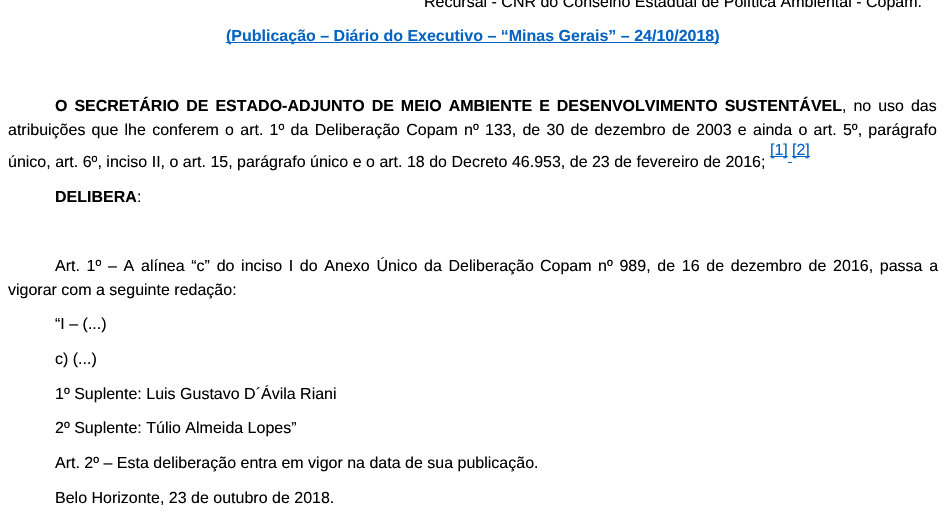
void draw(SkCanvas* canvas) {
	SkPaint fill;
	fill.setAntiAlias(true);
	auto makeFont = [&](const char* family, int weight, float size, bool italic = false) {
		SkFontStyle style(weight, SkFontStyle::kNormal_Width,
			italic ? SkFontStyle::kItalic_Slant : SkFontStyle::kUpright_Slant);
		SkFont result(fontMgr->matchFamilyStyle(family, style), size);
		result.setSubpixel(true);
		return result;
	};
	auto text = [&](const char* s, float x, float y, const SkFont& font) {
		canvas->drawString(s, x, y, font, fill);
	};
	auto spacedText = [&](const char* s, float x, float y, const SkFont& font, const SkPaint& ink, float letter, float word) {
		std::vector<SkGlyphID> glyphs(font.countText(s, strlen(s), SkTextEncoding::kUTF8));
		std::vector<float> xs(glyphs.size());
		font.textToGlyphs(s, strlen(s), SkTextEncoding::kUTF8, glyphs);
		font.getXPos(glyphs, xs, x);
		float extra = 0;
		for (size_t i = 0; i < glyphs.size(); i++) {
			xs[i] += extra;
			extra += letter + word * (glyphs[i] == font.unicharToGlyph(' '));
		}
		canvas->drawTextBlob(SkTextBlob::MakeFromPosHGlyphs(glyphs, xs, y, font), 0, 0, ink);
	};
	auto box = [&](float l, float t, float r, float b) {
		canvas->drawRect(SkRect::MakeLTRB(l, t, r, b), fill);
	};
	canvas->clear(0xFFFFFFFF);
	fill.setColor(0xFF0563C1);
	box(226, 42, 719, 43);
	box(770, 156, 788, 157);
	box(792, 156, 810, 157);
	box(788, 162, 792, 163);
	auto font1 = makeFont("Liberation Sans", 400, 16);
	fill.setColor(0xFF000000);
	text("Recursal - CNR do Conselho Estadual de Política Ambiental - Copam.", 424, 7, font1);
	auto font2 = makeFont("Liberation Sans", 700, 16);
	fill.setColor(0xFF0563C1);
	text("(Publicação – Diário do Executivo – “Minas Gerais” – 24/10/2018)", 226, 41, font2);
	fill.setColor(0xFF000000);
	spacedText("O SECRETÁRIO DE ESTADO-ADJUNTO DE MEIO AMBIENTE E DESENVOLVIMENTO SUSTENTÁVEL", 55, 111, font2, fill, 0, 2.5f);
	spacedText(", no uso das", 842, 111, font1, fill, 0, 2.5f);
	spacedText("atribuições que lhe conferem o art. 1º da Deliberação Copam nº 133, de 30 de dezembro de 2003 e ainda o art. 5º, parágrafo", 8, 135, font1, fill, 0, 1.8f);
	fill.setColor(0xFF0563C1);
	text("[1]", 770, 155, font1);
	text("[2]", 792, 155, font1);
	fill.setColor(0xFF000000);
	text("único, art. 6º, inciso II, o art. 15, parágrafo único e o art. 18 do Decreto 46.953, de 23 de fevereiro de 2016;", 8, 167, font1);
	text("DELIBERA", 55, 202, font2);
	text(":", 137, 202, font1);
	spacedText("Art. 1º – A alínea “c” do inciso I do Anexo Único da Deliberação", 55, 271, font1, fill, 0, 2.25f);
	text("Copam", 540, 271, font1);
	spacedText("nº 989, de 16 de dezembro de 2016, passa a", 598, 271, font1, fill, 0, 2.25f);
	text("vigorar com a seguinte redação:", 8, 295, font1);
	text("“I – (...)", 55, 329, font1);
	text("c) (...)", 55, 364, font1);
	text("1º Suplente: Luis Gustavo D´Ávila Riani", 55, 399, font1);
	text("2º Suplente: Túlio Almeida Lopes”", 55, 433, font1);
	text("Art. 2º – Esta deliberação entra em vigor na data de sua publicação.", 55, 468, font1);
	text("Belo Horizonte, 23 de outubro de 2018.", 55, 503, font1);
}
